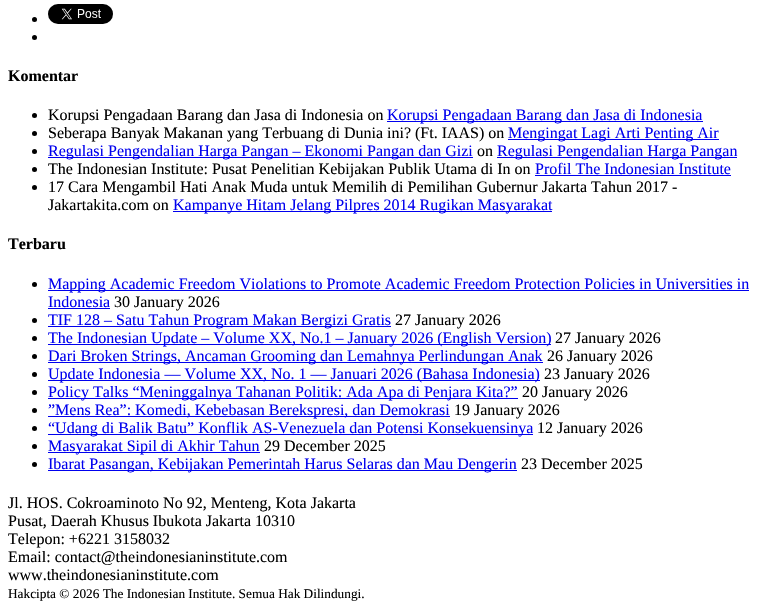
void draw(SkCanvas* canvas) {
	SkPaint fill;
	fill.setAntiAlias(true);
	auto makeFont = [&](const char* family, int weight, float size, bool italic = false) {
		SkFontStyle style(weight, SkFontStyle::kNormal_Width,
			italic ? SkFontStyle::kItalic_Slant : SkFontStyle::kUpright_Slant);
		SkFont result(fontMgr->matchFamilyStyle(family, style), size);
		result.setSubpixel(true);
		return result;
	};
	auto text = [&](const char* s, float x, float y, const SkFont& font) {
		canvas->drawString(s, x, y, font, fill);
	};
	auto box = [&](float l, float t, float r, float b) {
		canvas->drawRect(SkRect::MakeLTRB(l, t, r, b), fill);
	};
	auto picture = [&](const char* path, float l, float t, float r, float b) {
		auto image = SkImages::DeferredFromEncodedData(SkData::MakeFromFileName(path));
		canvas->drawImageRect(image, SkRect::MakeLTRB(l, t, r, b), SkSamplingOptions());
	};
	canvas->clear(0xFFFFFFFF);
	fill.setColor(0xFF000000);
	canvas->drawCircle(34.5f, 19.5f, 2.5f, fill);
	picture("image0.png", 48, 4, 113, 24);
	canvas->drawCircle(34.5f, 37.5f, 2.5f, fill);
	canvas->drawCircle(34.5f, 115.5f, 2.5f, fill);
	fill.setColor(0xFF0000EE);
	box(387, 121, 703, 122);
	fill.setColor(0xFF000000);
	canvas->drawCircle(34.5f, 133.5f, 2.5f, fill);
	fill.setColor(0xFF0000EE);
	box(508, 139, 719, 140);
	fill.setColor(0xFF000000);
	canvas->drawCircle(34.5f, 151.5f, 2.5f, fill);
	fill.setColor(0xFF0000EE);
	box(48, 157, 473, 158);
	box(497, 157, 737, 158);
	fill.setColor(0xFF000000);
	canvas->drawCircle(34.5f, 169.5f, 2.5f, fill);
	fill.setColor(0xFF0000EE);
	box(535, 175, 731, 176);
	fill.setColor(0xFF000000);
	canvas->drawCircle(34.5f, 187.5f, 2.5f, fill);
	fill.setColor(0xFF0000EE);
	box(173, 211, 552, 212);
	fill.setColor(0xFF000000);
	canvas->drawCircle(34.5f, 284.5f, 2.5f, fill);
	fill.setColor(0xFF0000EE);
	box(48, 290, 749, 291);
	box(48, 308, 110, 309);
	fill.setColor(0xFF000000);
	canvas->drawCircle(34.5f, 320.5f, 2.5f, fill);
	fill.setColor(0xFF0000EE);
	box(48, 326, 391, 327);
	fill.setColor(0xFF000000);
	canvas->drawCircle(34.5f, 338.5f, 2.5f, fill);
	fill.setColor(0xFF0000EE);
	box(48, 344, 551, 345);
	fill.setColor(0xFF000000);
	canvas->drawCircle(34.5f, 356.5f, 2.5f, fill);
	fill.setColor(0xFF0000EE);
	box(48, 362, 543, 363);
	fill.setColor(0xFF000000);
	canvas->drawCircle(34.5f, 374.5f, 2.5f, fill);
	fill.setColor(0xFF0000EE);
	box(48, 380, 540, 381);
	fill.setColor(0xFF000000);
	canvas->drawCircle(34.5f, 392.5f, 2.5f, fill);
	fill.setColor(0xFF0000EE);
	box(48, 398, 518, 399);
	fill.setColor(0xFF000000);
	canvas->drawCircle(34.5f, 410.5f, 2.5f, fill);
	fill.setColor(0xFF0000EE);
	box(48, 416, 450, 417);
	fill.setColor(0xFF000000);
	canvas->drawCircle(34.5f, 428.5f, 2.5f, fill);
	fill.setColor(0xFF0000EE);
	box(48, 434, 533, 435);
	fill.setColor(0xFF000000);
	canvas->drawCircle(34.5f, 446.5f, 2.5f, fill);
	fill.setColor(0xFF0000EE);
	box(48, 452, 260, 453);
	fill.setColor(0xFF000000);
	canvas->drawCircle(34.5f, 464.5f, 2.5f, fill);
	fill.setColor(0xFF0000EE);
	box(48, 470, 517, 471);
	auto font1 = makeFont("Liberation Serif", 700, 16);
	fill.setColor(0xFF000000);
	text("Komentar", 8, 81, font1);
	auto font2 = makeFont("Liberation Serif", 400, 16);
	text("Korupsi Pengadaan Barang dan Jasa di Indonesia on", 48, 120, font2);
	fill.setColor(0xFF0000EE);
	text("Korupsi Pengadaan Barang dan Jasa di Indonesia", 387, 120, font2);
	fill.setColor(0xFF000000);
	text("Seberapa Banyak Makanan yang Terbuang di Dunia ini? (Ft. IAAS) on", 48, 138, font2);
	fill.setColor(0xFF0000EE);
	text("Mengingat Lagi Arti Penting Air", 508, 138, font2);
	text("Regulasi Pengendalian Harga Pangan – Ekonomi Pangan dan Gizi", 48, 156, font2);
	fill.setColor(0xFF000000);
	text("on", 477, 156, font2);
	fill.setColor(0xFF0000EE);
	text("Regulasi Pengendalian Harga Pangan", 497, 156, font2);
	fill.setColor(0xFF000000);
	text("The Indonesian Institute: Pusat Penelitian Kebijakan Publik Utama di In on", 48, 174, font2);
	fill.setColor(0xFF0000EE);
	text("Profil The Indonesian Institute", 535, 174, font2);
	fill.setColor(0xFF000000);
	text("17 Cara Mengambil Hati Anak Muda untuk Memilih di Pemilihan Gubernur Jakarta Tahun 2017 -", 48, 192, font2);
	text("Jakartakita.com on", 48, 210, font2);
	fill.setColor(0xFF0000EE);
	text("Kampanye Hitam Jelang Pilpres 2014 Rugikan Masyarakat", 173, 210, font2);
	fill.setColor(0xFF000000);
	text("Terbaru", 8, 249, font1);
	fill.setColor(0xFF0000EE);
	text("Mapping Academic Freedom Violations to Promote Academic Freedom Protection Policies in Universities in", 48, 289, font2);
	text("Indonesia", 48, 307, font2);
	fill.setColor(0xFF000000);
	text("30 January 2026", 114, 307, font2);
	fill.setColor(0xFF0000EE);
	text("TIF 128 – Satu Tahun Program Makan Bergizi Gratis", 48, 325, font2);
	fill.setColor(0xFF000000);
	text("27 January 2026", 395, 325, font2);
	fill.setColor(0xFF0000EE);
	text("The Indonesian Update – Volume XX, No.1 – January 2026 (English Version)", 48, 343, font2);
	fill.setColor(0xFF000000);
	text("27 January 2026", 555, 343, font2);
	fill.setColor(0xFF0000EE);
	text("Dari Broken Strings, Ancaman Grooming dan Lemahnya Perlindungan Anak", 48, 361, font2);
	fill.setColor(0xFF000000);
	text("26 January 2026", 547, 361, font2);
	fill.setColor(0xFF0000EE);
	text("Update Indonesia — Volume XX, No. 1 — Januari 2026 (Bahasa Indonesia)", 48, 379, font2);
	fill.setColor(0xFF000000);
	text("23 January 2026", 544, 379, font2);
	fill.setColor(0xFF0000EE);
	text("Policy Talks “Meninggalnya Tahanan Politik: Ada Apa di Penjara Kita?”", 48, 397, font2);
	fill.setColor(0xFF000000);
	text("20 January 2026", 522, 397, font2);
	fill.setColor(0xFF0000EE);
	text("”Mens Rea”: Komedi, Kebebasan Berekspresi, dan Demokrasi", 48, 415, font2);
	fill.setColor(0xFF000000);
	text("19 January 2026", 454, 415, font2);
	fill.setColor(0xFF0000EE);
	text("“Udang di Balik Batu” Konflik AS-Venezuela dan Potensi Konsekuensinya", 48, 433, font2);
	fill.setColor(0xFF000000);
	text("12 January 2026", 537, 433, font2);
	fill.setColor(0xFF0000EE);
	text("Masyarakat Sipil di Akhir Tahun", 48, 451, font2);
	fill.setColor(0xFF000000);
	text("29 December 2025", 264, 451, font2);
	fill.setColor(0xFF0000EE);
	text("Ibarat Pasangan, Kebijakan Pemerintah Harus Selaras dan Mau Dengerin", 48, 469, font2);
	fill.setColor(0xFF000000);
	text("23 December 2025", 521, 469, font2);
	text("Jl. HOS. Cokroaminoto No 92, Menteng, Kota Jakarta", 8, 508, font2);
	text("Pusat, Daerah Khusus Ibukota Jakarta 10310", 8, 526, font2);
	text("Telepon: +6221 3158032", 8, 544, font2);
	text("Email: contact@theindonesianinstitute.com", 8, 562, font2);
	text("www.theindonesianinstitute.com", 8, 580, font2);
	auto font3 = makeFont("Liberation Serif", 400, 13.3f);
	text("Hakcipta © 2026 The Indonesian Institute. Semua Hak Dilindungi.", 8, 598, font3);
}
